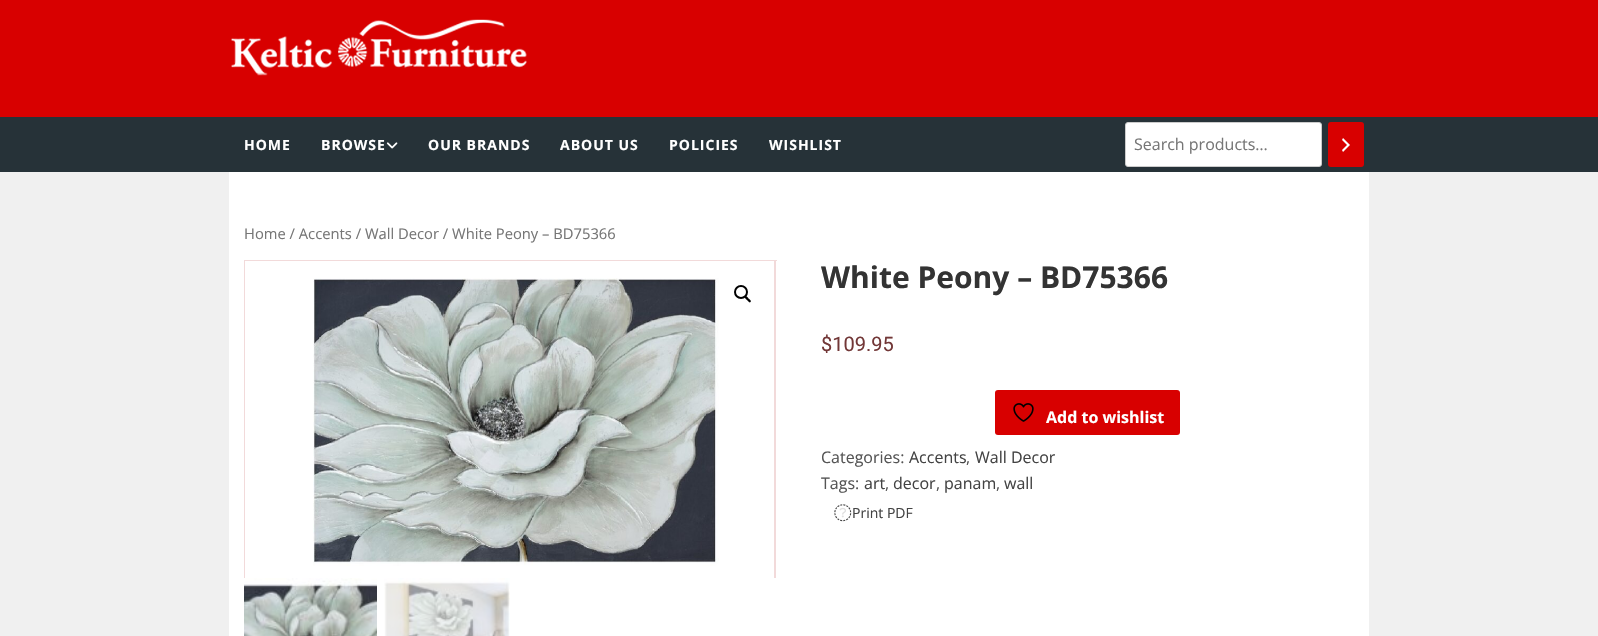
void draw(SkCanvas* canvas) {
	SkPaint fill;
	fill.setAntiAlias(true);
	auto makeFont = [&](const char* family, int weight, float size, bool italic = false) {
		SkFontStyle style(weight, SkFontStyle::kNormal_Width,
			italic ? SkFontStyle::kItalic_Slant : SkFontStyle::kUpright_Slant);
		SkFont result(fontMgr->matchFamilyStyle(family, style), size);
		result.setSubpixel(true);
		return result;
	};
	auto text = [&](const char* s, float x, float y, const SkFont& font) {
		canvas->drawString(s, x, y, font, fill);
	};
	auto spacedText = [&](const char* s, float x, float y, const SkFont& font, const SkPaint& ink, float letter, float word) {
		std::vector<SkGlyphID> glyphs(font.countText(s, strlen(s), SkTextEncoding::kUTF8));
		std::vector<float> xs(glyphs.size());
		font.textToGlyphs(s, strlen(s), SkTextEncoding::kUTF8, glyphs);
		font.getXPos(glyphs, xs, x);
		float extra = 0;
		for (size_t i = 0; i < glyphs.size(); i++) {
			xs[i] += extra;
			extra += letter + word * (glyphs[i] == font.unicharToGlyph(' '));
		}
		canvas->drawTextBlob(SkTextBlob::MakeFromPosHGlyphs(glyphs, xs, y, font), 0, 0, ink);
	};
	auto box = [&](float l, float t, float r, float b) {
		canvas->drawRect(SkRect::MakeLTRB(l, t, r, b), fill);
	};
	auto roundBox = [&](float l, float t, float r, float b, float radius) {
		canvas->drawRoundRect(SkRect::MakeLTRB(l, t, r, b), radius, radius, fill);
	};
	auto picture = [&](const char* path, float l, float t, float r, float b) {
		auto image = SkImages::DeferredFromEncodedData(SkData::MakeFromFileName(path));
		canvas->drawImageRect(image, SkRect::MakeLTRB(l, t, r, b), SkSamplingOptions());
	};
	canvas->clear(0xFFF0F0F0);
	fill.setColor(0xFFD80000);
	box(0, 0, 1598, 117);
	picture("image0.png", 231, 19, 527, 76);
	fill.setColor(0xFF263238);
	box(0, 117, 1598, 172);
	picture("image1.png", 386, 142, 398, 149);
	fill.setColor(0xFFFFFFFF);
	canvas->drawRoundRect(SkRect::MakeLTRB(1125.5f, 122.5f, 1321.5f, 166.5f), 2.5f, 2.5f, fill);
	fill.setStyle(SkPaint::kStroke_Style);
	fill.setStrokeWidth(1);
	fill.setColor(0xFFCCCCCC);
	canvas->drawRoundRect(SkRect::MakeLTRB(1125.5f, 122.5f, 1321.5f, 166.5f), 2.5f, 2.5f, fill);
	fill.setStyle(SkPaint::kFill_Style);
	fill.setColor(0xFFD80000);
	roundBox(1328, 122, 1364, 167, 3);
	picture("image2.png", 1342, 138, 1350, 152);
	fill.setColor(0xFFFFFFFF);
	box(229, 172, 1369, 636);
	picture("image4.png", 244, 578, 377, 636);
	canvas->save();
	canvas->clipRect(SkRect::MakeLTRB(244, 260, 777, 578));
	fill.setStyle(SkPaint::kStroke_Style);
	fill.setColor(0xFFF2DADA);
	canvas->drawRect(SkRect::MakeLTRB(244.5f, 260.5f, 774.5f, 579.5f), fill);
	canvas->restore();
	picture("image3.png", 313, 278, 719, 566);
	picture("image7.png", 834, 504, 852, 522);
	canvas->save();
	canvas->clipRect(SkRect::MakeLTRB(244, 260, 777, 578));
	canvas->drawRect(SkRect::MakeLTRB(775.5f, 260.5f, 1305.5f, 579.5f), fill);
	canvas->restore();
	fill.setStrokeWidth(2);
	fill.setColor(0xFF000000);
	canvas->drawCircle(741, 292, 6, fill);
	fill.setStyle(SkPaint::kFill_Style);
	canvas->drawPath(SkPathBuilder().moveTo(745, 296.5f).cubicTo(746, 295, 748, 298, 748.5f, 298.5f).cubicTo(749, 299, 752, 301, 750.5f, 302).cubicTo(749.5f, 303.5f, 747.5f, 300.5f, 747, 300).cubicTo(746.5f, 299.5f, 744, 297.5f, 745, 296.5f).close().detach(), fill);
	picture("image5.png", 384, 578, 510, 636);
	fill.setColor(0xFFD80000);
	roundBox(995, 390, 1180, 435, 3);
	picture("image6.png", 1013, 403, 1034, 422);
	auto font1 = makeFont("Open Sans", 700, 14);
	fill.setColor(0xFFFFFFFF);
	spacedText("HOME", 244, 150, font1, fill, 1, 0);
	spacedText("BROWSE", 321, 150, font1, fill, 1, 0);
	spacedText("OUR BRANDS", 428, 150, font1, fill, 1, 0);
	spacedText("ABOUT US", 560, 150, font1, fill, 1, 0);
	spacedText("POLICIES", 669, 150, font1, fill, 1, 0);
	spacedText("WISHLIST", 769, 150, font1, fill, 1, 0);
	auto font2 = makeFont("Open Sans", 400, 16);
	fill.setColor(0xFF767676);
	text("Search products…", 1134, 150, font2);
	auto font3 = makeFont("Open Sans", 400, 14.75f);
	text("Home / Accents / Wall Decor / White Peony – BD75366", 244, 239, font3);
	auto font4 = makeFont("Open Sans", 700, 30);
	fill.setColor(0xFF333333);
	text("White Peony – BD75366", 821, 288, font4);
	auto font5 = makeFont("Roboto", 400, 20);
	fill.setColor(0xFF723737);
	text("$109.95", 821, 351, font5);
	auto font6 = makeFont("Open Sans", 700, 16);
	fill.setColor(0xFFFFFFFF);
	text("Add to wishlist", 1046, 423, font6);
	fill.setColor(0xFF555555);
	text("Categories:", 821, 463, font2);
	fill.setColor(0xFF434343);
	text("Accents", 909, 463, font2);
	fill.setColor(0xFF555555);
	text(",", 966, 463, font2);
	fill.setColor(0xFF434343);
	text("Wall Decor", 975, 463, font2);
	fill.setColor(0xFF555555);
	text("Tags:", 821, 489, font2);
	fill.setColor(0xFF434343);
	text("art", 864, 489, font2);
	fill.setColor(0xFF555555);
	text(",", 885, 489, font2);
	fill.setColor(0xFF434343);
	text("decor", 893, 489, font2);
	fill.setColor(0xFF555555);
	text(",", 936, 489, font2);
	fill.setColor(0xFF434343);
	text("panam", 944, 489, font2);
	fill.setColor(0xFF555555);
	text(",", 996, 489, font2);
	fill.setColor(0xFF434343);
	text("wall", 1004, 489, font2);
	auto font7 = makeFont("Open Sans", 400, 14);
	text("Print PDF", 852, 518, font7);
}
